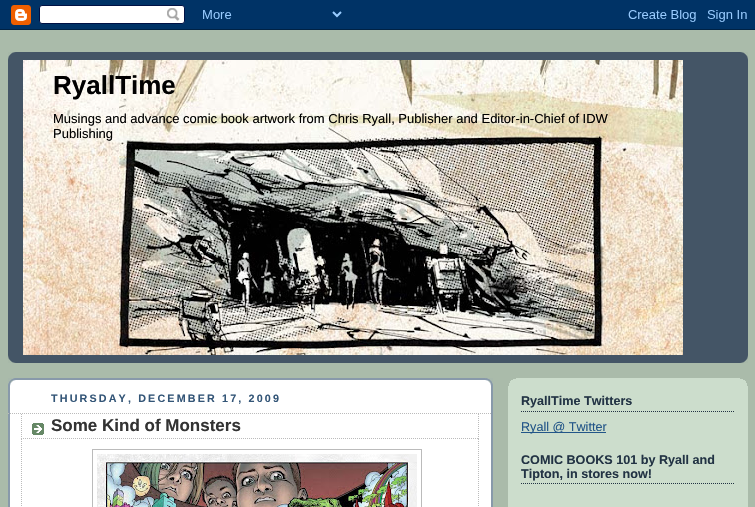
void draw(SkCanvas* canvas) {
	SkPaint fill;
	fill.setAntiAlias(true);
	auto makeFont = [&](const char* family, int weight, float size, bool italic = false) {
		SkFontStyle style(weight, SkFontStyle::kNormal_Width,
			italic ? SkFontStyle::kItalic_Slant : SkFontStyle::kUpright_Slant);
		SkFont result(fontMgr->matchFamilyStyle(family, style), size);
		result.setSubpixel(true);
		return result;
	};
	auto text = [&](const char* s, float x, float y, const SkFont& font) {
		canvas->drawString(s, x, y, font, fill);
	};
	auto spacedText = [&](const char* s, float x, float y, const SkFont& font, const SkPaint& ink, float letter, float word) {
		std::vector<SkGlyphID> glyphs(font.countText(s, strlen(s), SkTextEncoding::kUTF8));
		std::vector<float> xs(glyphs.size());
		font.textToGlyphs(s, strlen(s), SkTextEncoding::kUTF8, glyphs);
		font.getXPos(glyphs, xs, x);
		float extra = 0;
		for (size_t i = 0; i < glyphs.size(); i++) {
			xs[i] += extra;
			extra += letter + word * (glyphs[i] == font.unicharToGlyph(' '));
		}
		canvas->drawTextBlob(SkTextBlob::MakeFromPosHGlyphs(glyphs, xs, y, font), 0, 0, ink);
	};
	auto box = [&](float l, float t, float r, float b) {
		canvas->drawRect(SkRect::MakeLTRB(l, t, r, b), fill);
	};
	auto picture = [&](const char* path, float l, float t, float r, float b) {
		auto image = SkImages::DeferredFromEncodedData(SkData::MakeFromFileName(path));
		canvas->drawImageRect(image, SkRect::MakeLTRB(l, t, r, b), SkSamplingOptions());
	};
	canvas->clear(0xFFAABBAA);
	picture("image0.png", 0, 0, 755, 30);
	fill.setColor(0xFF445566);
	box(8, 52, 748, 363);
	picture("image1.png", 8, 52, 748, 60);
	picture("image2.png", 8, 355, 748, 363);
	picture("image3.png", 23, 60, 683, 355);
	fill.setColor(0xFFFFFFFF);
	box(10, 380, 491, 507);
	picture("image4.png", 8, 378, 493, 428);
	picture("image5.png", 8, 428, 493, 507);
	fill.setStyle(SkPaint::kStroke_Style);
	fill.setStrokeWidth(1);
	fill.setColor(0xFFBBBBBB);
	fill.setPathEffect(SkDashPathEffect::Make({{1, 1}}, 0));
	canvas->drawPath(SkPathBuilder().moveTo(8, 413.5f).lineTo(492, 413.5f).detach(), fill);
	fill.setPathEffect(nullptr);
	picture("image6.png", 32, 423, 44, 435);
	fill.setPathEffect(SkDashPathEffect::Make({{1, 1}}, 0));
	canvas->drawPath(SkPathBuilder().moveTo(478.5f, 414).lineTo(478.5f, 439).detach(), fill);
	fill.setPathEffect(nullptr);
	fill.setPathEffect(SkDashPathEffect::Make({{1, 1}}, 0));
	canvas->drawPath(SkPathBuilder().moveTo(21, 438.5f).lineTo(479, 438.5f).detach(), fill);
	fill.setPathEffect(nullptr);
	fill.setPathEffect(SkDashPathEffect::Make({{1, 1}}, 0));
	canvas->drawPath(SkPathBuilder().moveTo(21.5f, 414).lineTo(21.5f, 439).detach(), fill);
	fill.setPathEffect(nullptr);
	fill.setPathEffect(SkDashPathEffect::Make({{1, 1}}, 0));
	canvas->drawPath(SkPathBuilder().moveTo(478.5f, 439).lineTo(478.5f, 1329).detach(), fill);
	fill.setPathEffect(nullptr);
	fill.setPathEffect(SkDashPathEffect::Make({{1, 1}}, 0));
	canvas->drawPath(SkPathBuilder().moveTo(21.5f, 439).lineTo(21.5f, 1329).detach(), fill);
	fill.setPathEffect(nullptr);
	canvas->drawRect(SkRect::MakeLTRB(92.5f, 449.5f, 421.5f, 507.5f), fill);
	picture("image7.png", 97, 454, 417, 507);
	fill.setStyle(SkPaint::kFill_Style);
	fill.setColor(0xFFCCDDCC);
	box(508, 378, 748, 507);
	picture("image8.png", 508, 378, 748, 386);
	fill.setStyle(SkPaint::kStroke_Style);
	fill.setColor(0xFF223344);
	fill.setPathEffect(SkDashPathEffect::Make({{1, 1}}, 0));
	canvas->drawPath(SkPathBuilder().moveTo(521, 411.5f).lineTo(735, 411.5f).detach(), fill);
	fill.setPathEffect(nullptr);
	fill.setStyle(SkPaint::kFill_Style);
	fill.setColor(0xFF225588);
	box(521, 432, 606, 433);
	fill.setStyle(SkPaint::kStroke_Style);
	fill.setColor(0xFF223344);
	fill.setPathEffect(SkDashPathEffect::Make({{1, 1}}, 0));
	canvas->drawPath(SkPathBuilder().moveTo(521, 483.5f).lineTo(735, 483.5f).detach(), fill);
	fill.setPathEffect(nullptr);
	auto font1 = makeFont("Liberation Sans", 700, 26);
	fill.setStyle(SkPaint::kFill_Style);
	fill.setColor(0xFF000000);
	text("RyallTime", 53, 94, font1);
	auto font2 = makeFont("Liberation Sans", 400, 13);
	text("Musings and advance comic book artwork from Chris Ryall, Publisher and Editor-in-Chief of IDW", 53, 123, font2);
	text("Publishing", 53, 138, font2);
	auto font3 = makeFont("Liberation Sans", 700, 10.75f);
	fill.setColor(0xFF335577);
	spacedText("THURSDAY, DECEMBER 17, 2009", 51, 402, font3, fill, 2.15f, 0);
	auto font4 = makeFont("Liberation Sans", 700, 17);
	fill.setColor(0xFF333333);
	text("Some Kind of Monsters", 51, 431, font4);
	auto font5 = makeFont("Liberation Sans", 700, 12.6f);
	fill.setColor(0xFF223344);
	text("RyallTime Twitters", 521, 405, font5);
	auto font6 = makeFont("Liberation Sans", 400, 12.6f);
	fill.setColor(0xFF225588);
	text("Ryall @ Twitter", 521, 431, font6);
	fill.setColor(0xFF223344);
	text("COMIC BOOKS 101 by Ryall and", 521, 464, font5);
	text("Tipton, in stores now!", 521, 478, font5);
}
